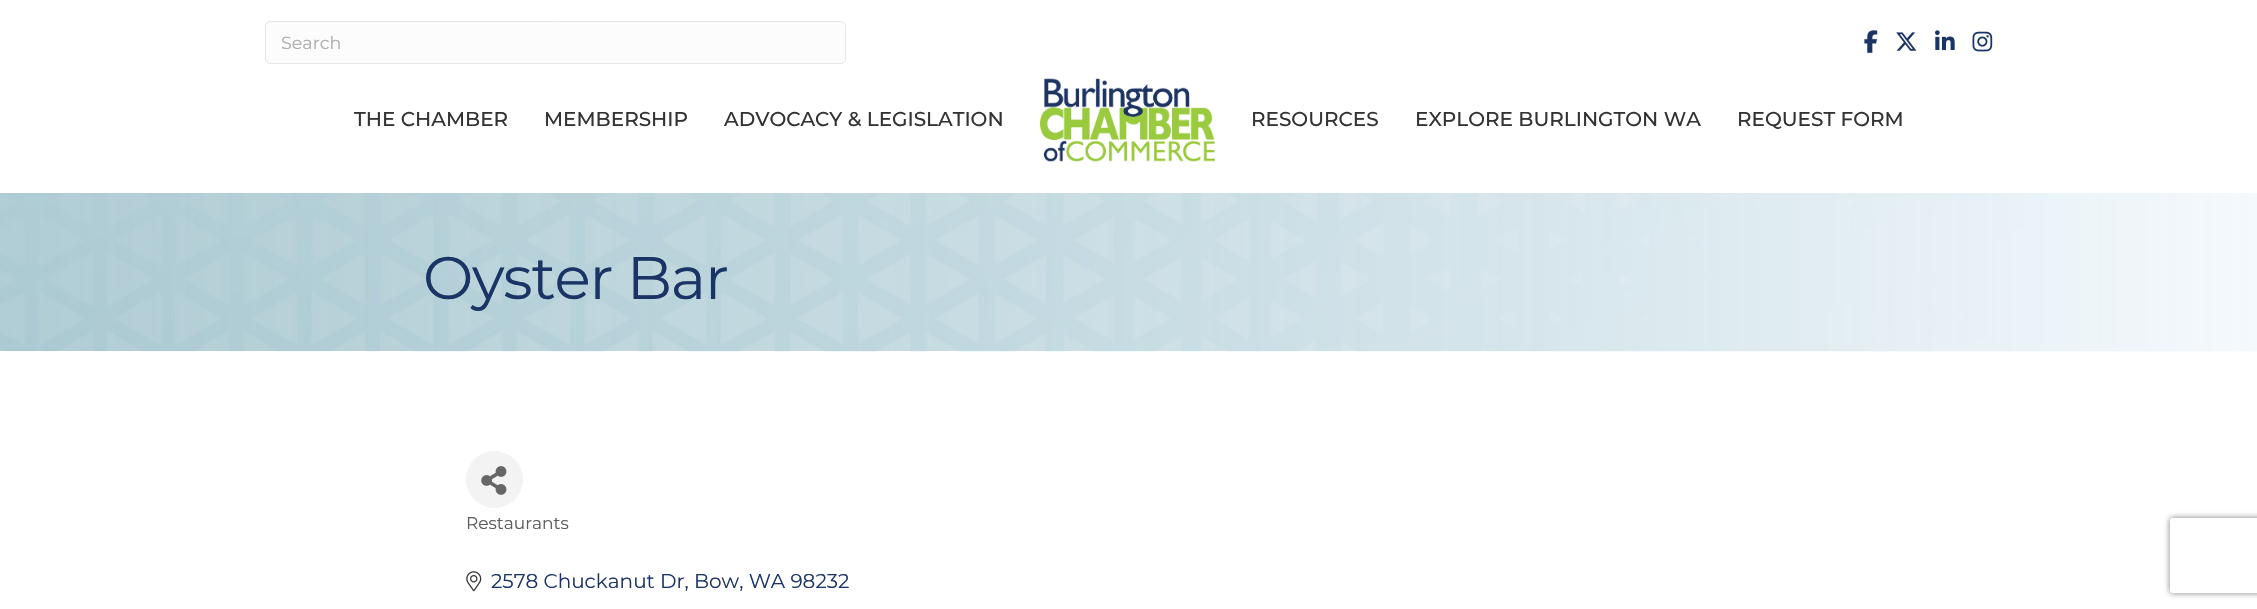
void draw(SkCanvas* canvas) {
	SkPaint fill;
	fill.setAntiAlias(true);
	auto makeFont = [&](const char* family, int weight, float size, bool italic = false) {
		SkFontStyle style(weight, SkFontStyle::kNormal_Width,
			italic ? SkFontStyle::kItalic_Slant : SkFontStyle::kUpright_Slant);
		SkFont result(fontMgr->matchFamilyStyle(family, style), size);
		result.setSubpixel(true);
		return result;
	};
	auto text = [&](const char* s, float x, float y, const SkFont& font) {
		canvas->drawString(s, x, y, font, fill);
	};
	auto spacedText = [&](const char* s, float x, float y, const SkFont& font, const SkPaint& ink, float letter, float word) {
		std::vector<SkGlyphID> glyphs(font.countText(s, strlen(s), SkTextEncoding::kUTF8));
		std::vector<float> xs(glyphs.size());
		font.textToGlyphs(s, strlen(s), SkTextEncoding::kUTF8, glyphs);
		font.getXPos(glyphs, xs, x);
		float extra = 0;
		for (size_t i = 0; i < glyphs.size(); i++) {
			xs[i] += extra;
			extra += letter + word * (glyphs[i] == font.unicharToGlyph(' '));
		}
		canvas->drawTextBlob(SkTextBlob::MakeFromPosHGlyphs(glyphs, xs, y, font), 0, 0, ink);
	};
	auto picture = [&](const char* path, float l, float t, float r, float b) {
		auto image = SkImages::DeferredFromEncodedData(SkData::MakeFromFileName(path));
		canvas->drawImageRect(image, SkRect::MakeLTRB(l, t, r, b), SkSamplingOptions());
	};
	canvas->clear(0xFFFFFFFF);
	fill.setColor(0xFFFCFCFC);
	canvas->drawRoundRect(SkRect::MakeLTRB(265.5f, 21.5f, 845.5f, 63.5f), 4.5f, 4.5f, fill);
	fill.setStyle(SkPaint::kStroke_Style);
	fill.setStrokeWidth(1);
	fill.setColor(0xFFE6E6E6);
	canvas->drawRoundRect(SkRect::MakeLTRB(265.5f, 21.5f, 845.5f, 63.5f), 4.5f, 4.5f, fill);
	picture("image0.png", 1864, 30, 1878, 53);
	picture("image1.png", 1896, 32, 1917, 51);
	picture("image2.png", 1935, 30, 1955, 50);
	picture("image3.png", 1972, 31, 1993, 52);
	picture("image4.png", 1040, 78, 1215, 162);
	picture("image5.png", 0, 193, 2257, 352);
	fill.setStyle(SkPaint::kFill_Style);
	fill.setColor(0xFFF3F3F3);
	canvas->drawCircle(494.5f, 479.5f, 28.5f, fill);
	picture("image6.png", 481, 466, 507, 495);
	picture("image7.png", 466, 571, 482, 592);
	canvas->save();
	canvas->clipPath(SkPathBuilder(SkPathFillType::kEvenOdd).moveTo(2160, 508).lineTo(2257, 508).lineTo(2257, 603).lineTo(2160, 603).close().moveTo(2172.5f, 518).lineTo(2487.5f, 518).cubicTo(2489, 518, 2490, 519, 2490, 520.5f).lineTo(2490, 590.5f).cubicTo(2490, 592, 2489, 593, 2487.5f, 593).lineTo(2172.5f, 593).cubicTo(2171, 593, 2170, 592, 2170, 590.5f).lineTo(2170, 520.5f).cubicTo(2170, 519, 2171, 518, 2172.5f, 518).close().detach(), true);
	fill.setColor(0xFF808080);
	fill.setMaskFilter(SkMaskFilter::MakeBlur(kNormal_SkBlurStyle, 3));
	canvas->drawRoundRect(SkRect::MakeLTRB(2170, 518, 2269, 593), 2.5f, 2.5f, fill);
	fill.setMaskFilter(nullptr);
	canvas->restore();
	auto font1 = makeFont("Montserrat", 400, 17.5f);
	fill.setColor(0xFFACACAC);
	text("Search", 281, 49, font1);
	auto font2 = makeFont("Montserrat", 500, 20);
	fill.setColor(0xFF333333);
	text("THE CHAMBER", 354, 126, font2);
	text("MEMBERSHIP", 544, 126, font2);
	text("ADVOCACY & LEGISLATION", 724, 126, font2);
	text("RESOURCES", 1251, 126, font2);
	text("EXPLORE BURLINGTON WA", 1415, 126, font2);
	text("REQUEST FORM", 1737, 126, font2);
	auto font3 = makeFont("Montserrat", 400, 60);
	fill.setColor(0xFF1A3465);
	spacedText("Oyster Bar", 423, 299, font3, fill, -1.25f, 0);
	auto font4 = makeFont("Montserrat", 400, 17);
	fill.setColor(0xFF5C5C5C);
	text("Restaurants", 466, 529, font4);
	auto font5 = makeFont("Montserrat", 400, 20);
	fill.setColor(0xFF1A3465);
	text("2578 Chuckanut Dr, Bow, WA 98232", 491, 588, font5);
}
